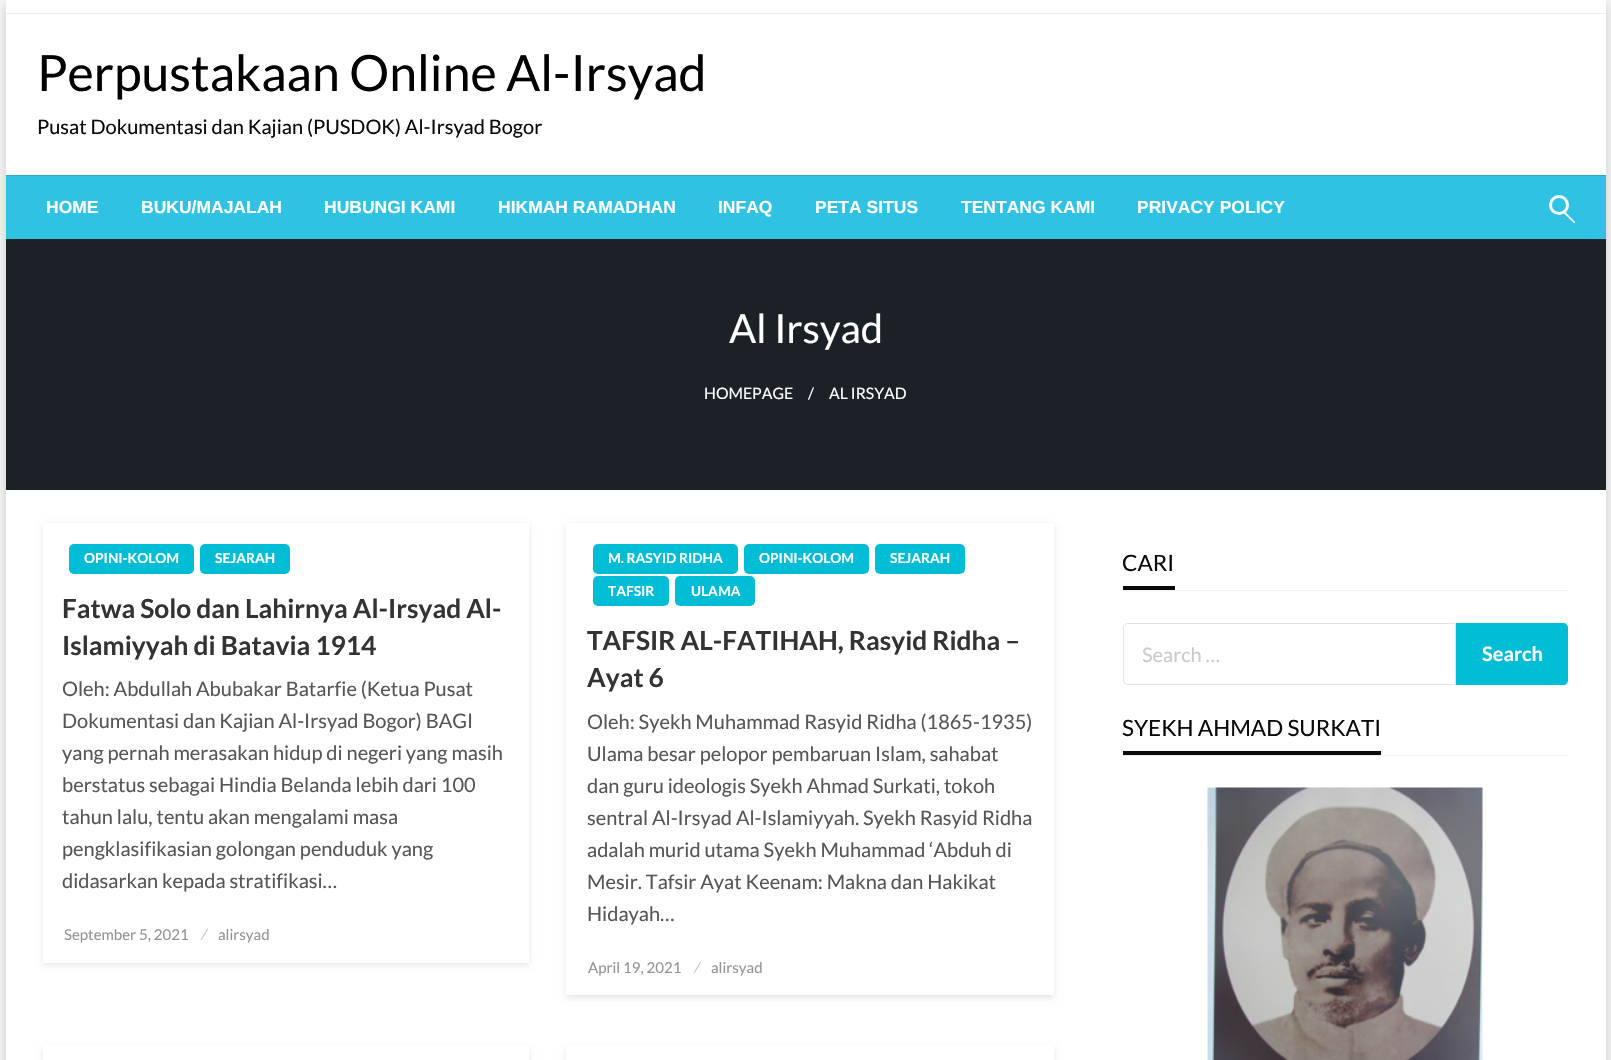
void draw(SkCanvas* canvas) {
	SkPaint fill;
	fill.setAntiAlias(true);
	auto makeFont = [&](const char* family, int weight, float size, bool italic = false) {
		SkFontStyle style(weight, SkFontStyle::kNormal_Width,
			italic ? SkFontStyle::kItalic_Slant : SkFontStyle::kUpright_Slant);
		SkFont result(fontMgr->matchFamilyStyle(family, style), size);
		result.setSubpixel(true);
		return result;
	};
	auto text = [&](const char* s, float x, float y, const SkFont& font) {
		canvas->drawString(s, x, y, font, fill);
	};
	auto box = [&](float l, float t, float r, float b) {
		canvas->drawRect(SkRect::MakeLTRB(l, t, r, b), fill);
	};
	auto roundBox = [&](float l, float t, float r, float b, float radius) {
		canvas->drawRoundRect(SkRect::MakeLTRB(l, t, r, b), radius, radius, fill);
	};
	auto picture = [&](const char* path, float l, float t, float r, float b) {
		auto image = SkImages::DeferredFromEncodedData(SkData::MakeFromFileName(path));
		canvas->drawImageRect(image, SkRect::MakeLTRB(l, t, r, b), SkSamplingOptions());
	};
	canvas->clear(0xFFF7F7F7);
	fill.setColor(0x17000000);
	fill.setMaskFilter(SkMaskFilter::MakeBlur(kNormal_SkBlurStyle, 6));
	canvas->drawRect(SkRect::MakeLTRB(6, 4, 1606, 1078), fill);
	fill.setMaskFilter(nullptr);
	fill.setColor(0x1A000000);
	fill.setMaskFilter(SkMaskFilter::MakeBlur(kNormal_SkBlurStyle, 5));
	canvas->drawRect(SkRect::MakeLTRB(6, 5, 1606, 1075), fill);
	fill.setMaskFilter(nullptr);
	fill.setColor(0xFFFFFFFF);
	box(6, 0, 1606, 13);
	fill.setColor(0xFFECEDE7);
	box(6, 13, 1606, 14);
	fill.setColor(0xFFFFFFFF);
	box(6, 14, 1606, 175);
	fill.setColor(0xFF2FC2E3);
	box(6, 176, 1606, 239);
	fill.setColor(0xFF29ABC8);
	box(6, 175, 1606, 176);
	fill.setStyle(SkPaint::kStroke_Style);
	fill.setStrokeWidth(3);
	fill.setColor(0xFFFFFFFF);
	canvas->drawCircle(1559, 205, 8.5f, fill);
	fill.setStyle(SkPaint::kFill_Style);
	canvas->drawPath(SkPathBuilder().moveTo(1565, 211.5f).lineTo(1575, 222).cubicTo(1575.5f, 223, 1574.5f, 223.5f, 1574, 223).lineTo(1563.5f, 213).cubicTo(1562.5f, 212, 1564, 210.5f, 1565, 211.5f).close().detach(), fill);
	box(6, 490, 1606, 1060);
	fill.setColor(0xFF1C2127);
	box(6, 239, 1606, 490);
	fill.setColor(0x1A000000);
	fill.setMaskFilter(SkMaskFilter::MakeBlur(kNormal_SkBlurStyle, 3));
	canvas->drawRect(SkRect::MakeLTRB(43, 525, 529, 965), fill);
	fill.setMaskFilter(nullptr);
	fill.setColor(0xFFFFFFFF);
	box(43, 523, 529, 963);
	fill.setColor(0xFF00BCD4);
	roundBox(69, 544, 194, 574, 5);
	roundBox(200, 544, 290, 574, 5);
	fill.setColor(0x1A000000);
	fill.setMaskFilter(SkMaskFilter::MakeBlur(kNormal_SkBlurStyle, 3));
	canvas->drawRect(SkRect::MakeLTRB(566, 525, 1054, 998), fill);
	fill.setMaskFilter(nullptr);
	fill.setColor(0xFFFFFFFF);
	box(566, 523, 1054, 995);
	fill.setColor(0xFF00BCD4);
	roundBox(593, 544, 738, 574, 5);
	roundBox(744, 544, 869, 574, 5);
	roundBox(875, 544, 965, 574, 5);
	roundBox(593, 576, 669, 606, 5);
	roundBox(675, 576, 755, 606, 5);
	fill.setColor(0x1A000000);
	fill.setMaskFilter(SkMaskFilter::MakeBlur(kNormal_SkBlurStyle, 3));
	canvas->drawRect(SkRect::MakeLTRB(43, 1048, 529, 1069), fill);
	fill.setMaskFilter(nullptr);
	fill.setColor(0xFFFFFFFF);
	box(43, 1045, 529, 1060);
	fill.setColor(0x1A000000);
	fill.setMaskFilter(SkMaskFilter::MakeBlur(kNormal_SkBlurStyle, 3));
	canvas->drawRect(SkRect::MakeLTRB(566, 1048, 1054, 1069), fill);
	fill.setMaskFilter(nullptr);
	fill.setColor(0xFFFFFFFF);
	box(566, 1045, 1054, 1060);
	fill.setColor(0xFFEFEFEF);
	box(1123, 590, 1568, 591);
	fill.setColor(0xFF0A0A0A);
	box(1123, 586, 1175, 590);
	fill.setStyle(SkPaint::kStroke_Style);
	fill.setStrokeWidth(1);
	fill.setColor(0xFFE4E3E3);
	canvas->drawPath(SkPathBuilder().moveTo(1128, 623.5f).lineTo(1455.5f, 623.5f).lineTo(1455.5f, 684.5f).lineTo(1128, 684.5f).cubicTo(1125.5f, 684.5f, 1123.5f, 682.5f, 1123.5f, 680).lineTo(1123.5f, 628).cubicTo(1123.5f, 625.5f, 1125.5f, 623.5f, 1128, 623.5f).close().detach(), fill);
	fill.setStyle(SkPaint::kFill_Style);
	fill.setColor(0xFF00BCD4);
	canvas->drawPath(SkPathBuilder().moveTo(1456, 623).lineTo(1563, 623).cubicTo(1566, 623, 1568, 625, 1568, 628).lineTo(1568, 680).cubicTo(1568, 683, 1566, 685, 1563, 685).lineTo(1456, 685).close().detach(), fill);
	fill.setColor(0xFFEFEFEF);
	box(1123, 755, 1568, 756);
	fill.setColor(0xFF0A0A0A);
	box(1123, 751, 1381, 755);
	picture("image0.png", 1207, 787, 1483, 1060);
	auto font1 = makeFont("Lato", 400, 50);
	fill.setColor(0xFF000000);
	text("Perpustakaan Online Al-Irsyad", 37, 91, font1);
	auto font2 = makeFont("Lato", 400, 20);
	fill.setColor(0xFF0A0A0A);
	text("Pusat Dokumentasi dan Kajian (PUSDOK) Al-Irsyad Bogor", 37, 134, font2);
	auto font3 = makeFont("Liberation Sans", 700, 17.5f);
	fill.setColor(0xFFFFFFFF);
	text("HOME", 46, 213, font3);
	text("BUKU/MAJALAH", 141, 213, font3);
	text("HUBUNGI KAMI", 324, 213, font3);
	text("HIKMAH RAMADHAN", 498, 213, font3);
	text("INFAQ", 718, 213, font3);
	text("PETA SITUS", 815, 213, font3);
	text("TENTANG KAMI", 961, 213, font3);
	text("PRIVACY POLICY", 1137, 213, font3);
	auto font4 = makeFont("Lato", 400, 40);
	text("Al Irsyad", 729, 343, font4);
	auto font5 = makeFont("Lato", 400, 15.75f);
	text("HOMEPAGE", 704, 399, font5);
	text("/", 808, 399, font5);
	text("AL IRSYAD", 829, 399, font5);
	auto font6 = makeFont("Lato", 700, 13.75f);
	text("OPINI-KOLOM", 84, 563, font6);
	text("SEJARAH", 215, 563, font6);
	auto font7 = makeFont("Lato", 700, 26.25f);
	fill.setColor(0xFF333333);
	text("Fatwa Solo dan Lahirnya Al-Irsyad Al-", 62, 618, font7);
	text("Islamiyyah di Batavia 1914", 62, 655, font7);
	fill.setColor(0xFF565656);
	text("Oleh: Abdullah Abubakar Batarfie (Ketua Pusat", 62, 696, font2);
	text("Dokumentasi dan Kajian Al-Irsyad Bogor) BAGI", 62, 728, font2);
	text("yang pernah merasakan hidup di negeri yang masih", 62, 760, font2);
	text("berstatus sebagai Hindia Belanda lebih dari 100", 62, 792, font2);
	text("tahun lalu, tentu akan mengalami masa", 62, 824, font2);
	text("pengklasifikasian golongan penduduk yang", 62, 856, font2);
	text("didasarkan kepada stratifikasi…", 62, 888, font2);
	auto font8 = makeFont("Lato", 400, 15);
	fill.setColor(0xFF969292);
	text("September 5, 2021", 64, 940, font8);
	fill.setColor(0xFFC0C0C0);
	text("⁄", 202, 940, font8);
	fill.setColor(0xFF969292);
	text("alirsyad", 218, 940, font8);
	fill.setColor(0xFFFFFFFF);
	text("M. RASYID RIDHA", 608, 563, font6);
	text("OPINI-KOLOM", 759, 563, font6);
	text("SEJARAH", 890, 563, font6);
	text("TAFSIR", 608, 596, font6);
	text("ULAMA", 691, 596, font6);
	fill.setColor(0xFF333333);
	text("TAFSIR AL-FATIHAH, Rasyid Ridha –", 587, 650, font7);
	text("Ayat 6", 587, 687, font7);
	fill.setColor(0xFF565656);
	text("Oleh: Syekh Muhammad Rasyid Ridha (1865-1935)", 587, 729, font2);
	text("Ulama besar pelopor pembaruan Islam, sahabat", 587, 761, font2);
	text("dan guru ideologis Syekh Ahmad Surkati, tokoh", 587, 793, font2);
	text("sentral Al-Irsyad Al-Islamiyyah. Syekh Rasyid Ridha", 587, 825, font2);
	text("adalah murid utama Syekh Muhammad ‘Abduh di", 587, 857, font2);
	text("Mesir. Tafsir Ayat Keenam: Makna dan Hakikat", 587, 889, font2);
	text("Hidayah…", 587, 921, font2);
	fill.setColor(0xFF969292);
	text("April 19, 2021", 588, 973, font8);
	fill.setColor(0xFFC0C0C0);
	text("⁄", 695, 973, font8);
	fill.setColor(0xFF969292);
	text("alirsyad", 711, 973, font8);
	auto font9 = makeFont("Lato", 400, 22.5f);
	fill.setColor(0xFF0A0A0A);
	text("CARI", 1122, 571, font9);
	fill.setColor(0xFFCACACA);
	text("Search …", 1142, 662, font2);
	auto font10 = makeFont("Lato", 700, 20);
	fill.setColor(0xFFFFFFFF);
	text("Search", 1482, 661, font10);
	fill.setColor(0xFF0A0A0A);
	text("SYEKH AHMAD SURKATI", 1122, 736, font9);
}
